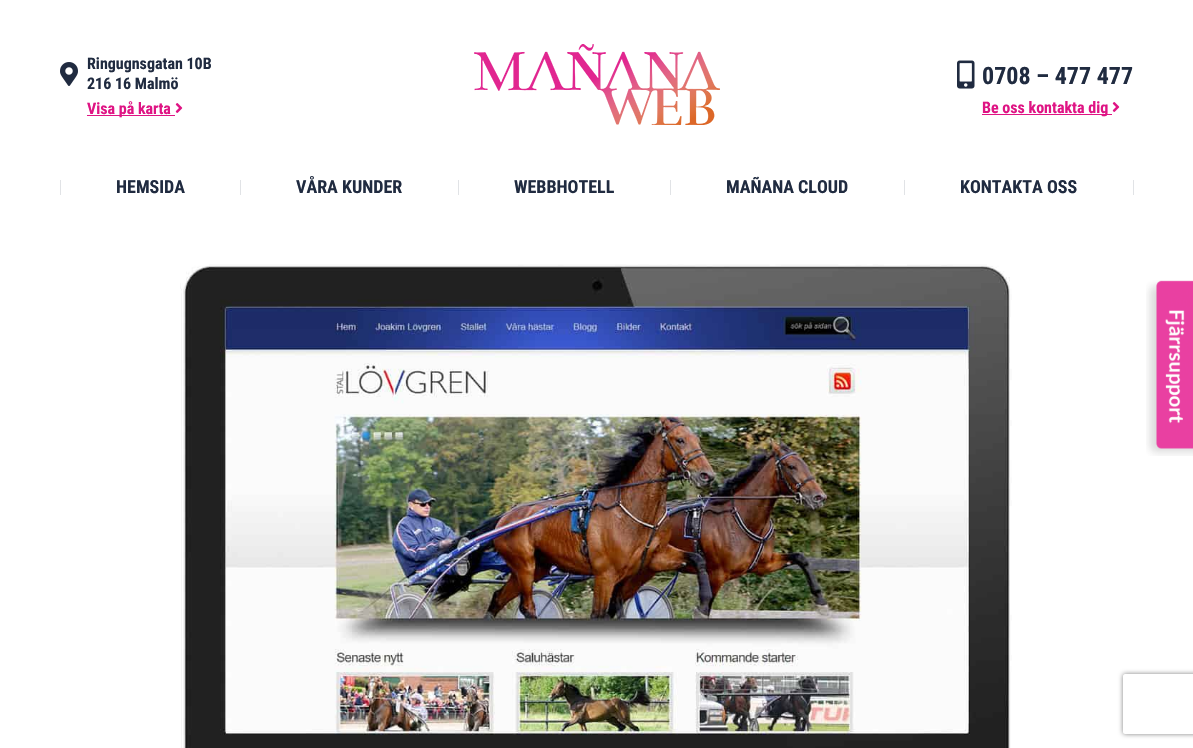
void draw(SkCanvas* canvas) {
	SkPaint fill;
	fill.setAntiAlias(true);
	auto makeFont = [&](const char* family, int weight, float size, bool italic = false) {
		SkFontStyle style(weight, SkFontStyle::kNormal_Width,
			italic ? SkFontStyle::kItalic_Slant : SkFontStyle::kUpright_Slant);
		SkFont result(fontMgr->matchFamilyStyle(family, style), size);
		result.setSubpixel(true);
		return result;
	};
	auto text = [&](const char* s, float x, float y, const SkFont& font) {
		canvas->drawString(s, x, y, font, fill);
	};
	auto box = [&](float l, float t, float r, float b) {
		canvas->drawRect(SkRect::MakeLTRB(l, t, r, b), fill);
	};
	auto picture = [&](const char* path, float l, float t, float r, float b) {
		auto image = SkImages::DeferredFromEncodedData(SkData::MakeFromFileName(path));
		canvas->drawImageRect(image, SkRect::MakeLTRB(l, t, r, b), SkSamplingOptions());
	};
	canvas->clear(0xFFFFFFFF);
	picture("image0.png", 60, 62, 78, 86);
	fill.setColor(0xFFDF1484);
	box(87, 115, 175, 116);
	picture("image1.png", 175, 103, 183, 113);
	picture("image2.png", 474, 44, 720, 125);
	picture("image3.png", 957, 60, 975, 89);
	box(982, 114, 1112, 115);
	picture("image1.png", 1112, 102, 1120, 112);
	fill.setColor(0xFFE1E3E6);
	box(60, 180, 61, 195);
	box(240, 180, 241, 195);
	box(458, 180, 459, 195);
	box(670, 180, 671, 195);
	box(904, 180, 905, 195);
	box(1133, 180, 1134, 195);
	picture("image4.png", 180, 264, 1012, 748);
	picture("image5.png", 1146, 280, 1193, 456);
	canvas->save();
	canvas->clipPath(SkPathBuilder(SkPathFillType::kEvenOdd).moveTo(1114, 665).lineTo(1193, 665).lineTo(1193, 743).lineTo(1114, 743).close().moveTo(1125, 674).lineTo(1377, 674).cubicTo(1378, 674, 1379, 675, 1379, 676).lineTo(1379, 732).cubicTo(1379, 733, 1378, 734, 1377, 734).lineTo(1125, 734).cubicTo(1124, 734, 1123, 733, 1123, 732).lineTo(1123, 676).cubicTo(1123, 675, 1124, 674, 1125, 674).close().detach(), true);
	fill.setColor(0xFF808080);
	fill.setMaskFilter(SkMaskFilter::MakeBlur(kNormal_SkBlurStyle, 2.5f));
	canvas->drawRoundRect(SkRect::MakeLTRB(1123, 674, 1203, 734), 2, 2, fill);
	fill.setMaskFilter(nullptr);
	canvas->restore();
	auto font1 = makeFont("Roboto Condensed", 700, 16);
	fill.setColor(0xFF202B40);
	text("Ringugnsgatan 10B", 87, 69, font1);
	text("216 16 Malmö", 87, 89, font1);
	fill.setColor(0xFFDF1484);
	text("Visa på karta", 87, 114, font1);
	auto font2 = makeFont("Roboto Condensed", 700, 24);
	fill.setColor(0xFF202B40);
	text("0708 – 477 477", 982, 84, font2);
	fill.setColor(0xFFDF1484);
	text("Be oss kontakta dig", 982, 113, font1);
	auto font3 = makeFont("Roboto Condensed", 700, 18);
	fill.setColor(0xFF202B40);
	text("HEMSIDA", 116, 193, font3);
	text("VÅRA KUNDER", 296, 193, font3);
	text("WEBBHOTELL", 514, 193, font3);
	text("MAÑANA CLOUD", 726, 193, font3);
	text("KONTAKTA OSS", 960, 193, font3);
}
